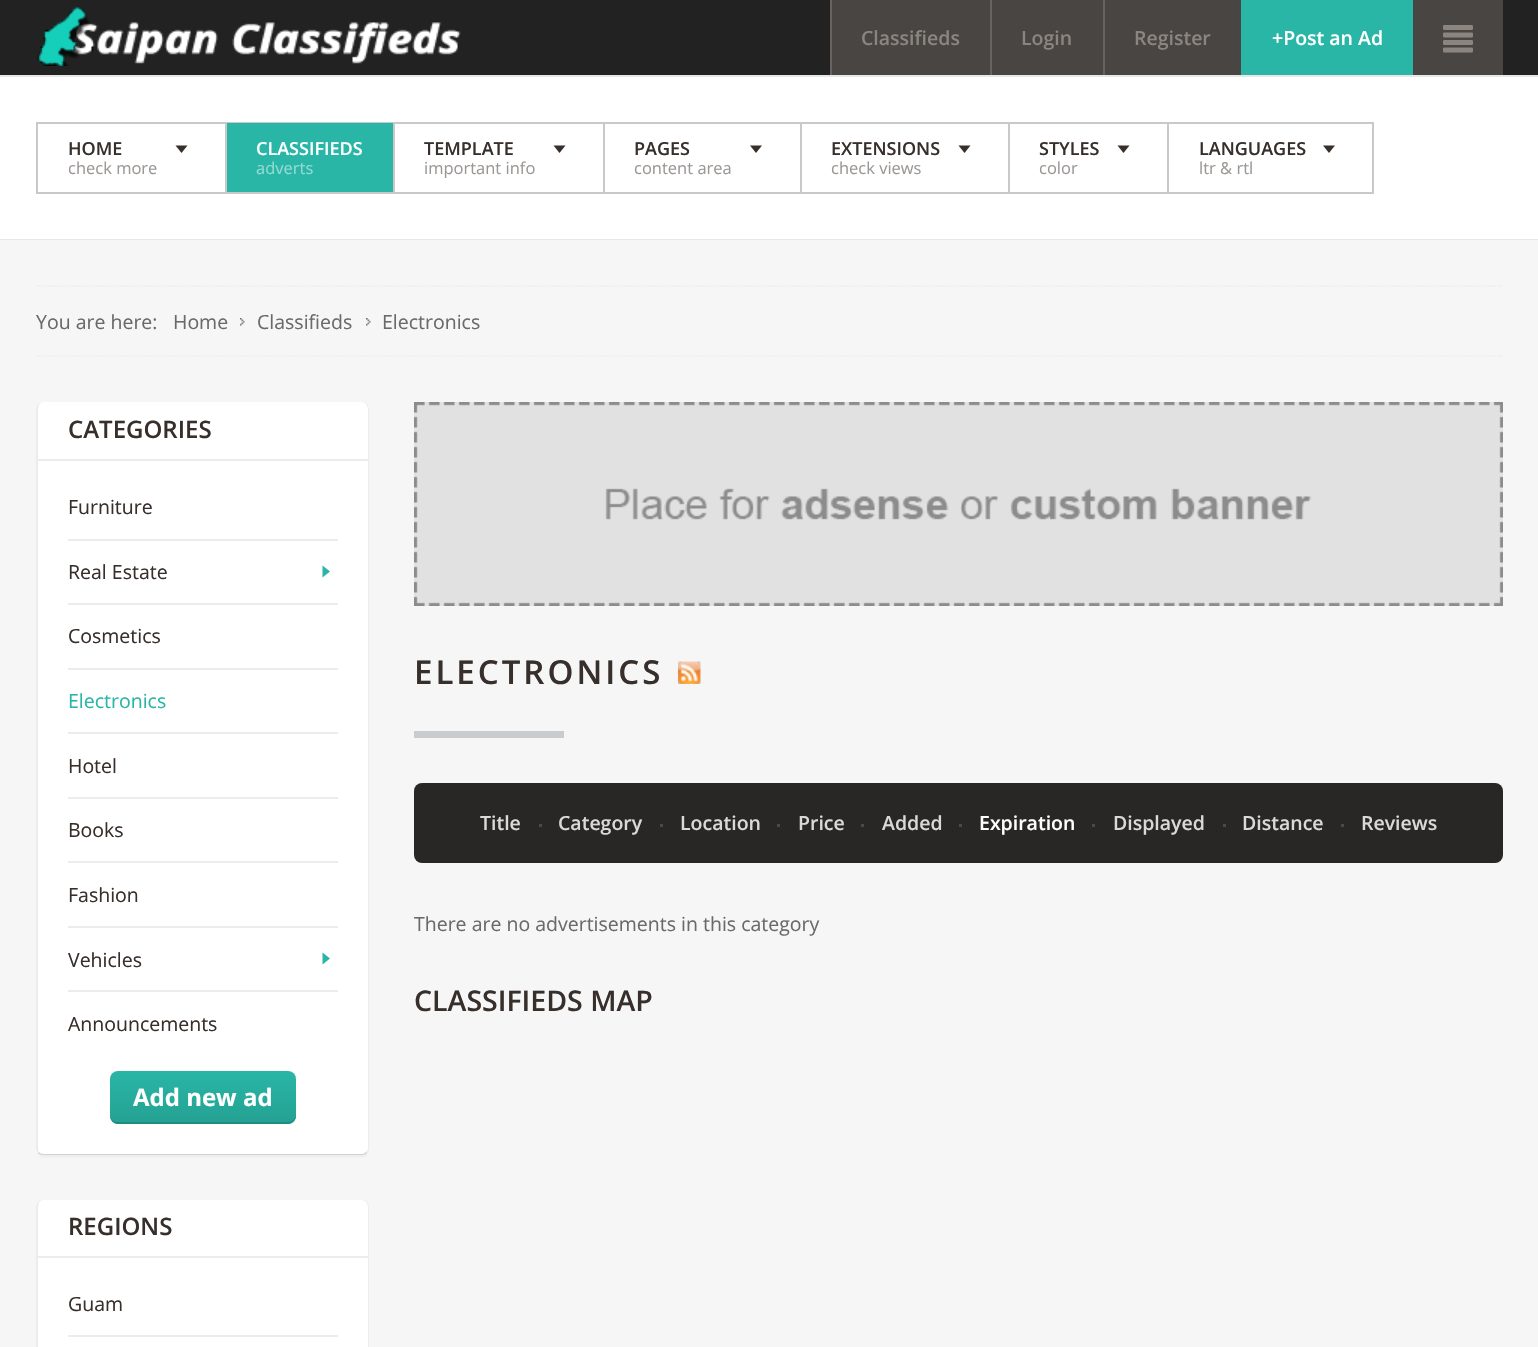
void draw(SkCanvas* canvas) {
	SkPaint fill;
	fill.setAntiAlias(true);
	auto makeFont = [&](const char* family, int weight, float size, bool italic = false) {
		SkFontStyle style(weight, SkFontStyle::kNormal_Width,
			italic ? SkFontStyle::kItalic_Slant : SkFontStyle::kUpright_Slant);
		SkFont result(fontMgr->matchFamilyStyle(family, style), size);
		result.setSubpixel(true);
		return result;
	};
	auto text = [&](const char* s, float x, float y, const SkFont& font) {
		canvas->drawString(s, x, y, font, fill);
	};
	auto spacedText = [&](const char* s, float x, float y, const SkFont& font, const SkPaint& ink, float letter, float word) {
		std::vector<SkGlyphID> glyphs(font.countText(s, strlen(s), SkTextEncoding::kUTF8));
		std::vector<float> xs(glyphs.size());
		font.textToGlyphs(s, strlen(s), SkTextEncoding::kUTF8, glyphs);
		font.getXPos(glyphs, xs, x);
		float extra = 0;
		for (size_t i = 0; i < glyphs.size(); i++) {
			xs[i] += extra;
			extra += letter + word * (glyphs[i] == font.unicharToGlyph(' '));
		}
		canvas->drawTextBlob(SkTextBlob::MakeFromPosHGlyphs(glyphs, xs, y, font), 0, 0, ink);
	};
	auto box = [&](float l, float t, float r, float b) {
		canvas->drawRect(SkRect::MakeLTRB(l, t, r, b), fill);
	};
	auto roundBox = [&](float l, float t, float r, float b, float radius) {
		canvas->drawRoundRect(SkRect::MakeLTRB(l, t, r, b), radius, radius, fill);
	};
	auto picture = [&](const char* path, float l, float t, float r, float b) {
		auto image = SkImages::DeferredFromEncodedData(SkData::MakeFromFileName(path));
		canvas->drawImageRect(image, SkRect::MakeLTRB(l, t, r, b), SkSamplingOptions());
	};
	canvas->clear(0xFFFFFFFF);
	fill.setColor(0xFF222222);
	box(0, 0, 1538, 75);
	picture("image0.png", 37, 7, 461, 66);
	fill.setColor(0xFF494542);
	box(832, 0, 990, 75);
	fill.setColor(0xFF69635F);
	box(830, 0, 832, 75);
	fill.setColor(0xFF494542);
	box(992, 0, 1103, 75);
	fill.setColor(0xFF69635F);
	box(990, 0, 992, 75);
	fill.setColor(0xFF494542);
	box(1105, 0, 1241, 75);
	fill.setColor(0xFF69635F);
	box(1103, 0, 1105, 75);
	fill.setColor(0xFF29B6A6);
	box(1241, 0, 1413, 75);
	fill.setColor(0xFF494542);
	box(1413, 0, 1503, 75);
	picture("image1.png", 1443, 25, 1473, 53);
	fill.setColor(0xFFE7E7E7);
	box(0, 75, 1538, 77);
	box(0, 239, 1538, 240);
	fill.setStyle(SkPaint::kStroke_Style);
	fill.setStrokeWidth(2);
	fill.setColor(0xFFC9C9C9);
	canvas->drawRect(SkRect::MakeLTRB(37, 123, 1373, 193), fill);
	fill.setStyle(SkPaint::kFill_Style);
	fill.setColor(0xFF372F2B);
	canvas->drawPath(SkPathBuilder().moveTo(175.5f, 145.5f).lineTo(187.5f, 145.5f).lineTo(181.5f, 153).close().detach(), fill);
	fill.setColor(0xFFC9C9C9);
	box(225, 123, 227, 192);
	fill.setColor(0xFF29B6A6);
	box(227, 123, 393, 192);
	fill.setColor(0xFFC9C9C9);
	box(393, 123, 395, 192);
	fill.setColor(0xFF372F2B);
	canvas->drawPath(SkPathBuilder().moveTo(553.5f, 145.5f).lineTo(565.5f, 145.5f).lineTo(559.5f, 153).close().detach(), fill);
	fill.setColor(0xFFC9C9C9);
	box(603, 123, 605, 192);
	fill.setColor(0xFF372F2B);
	canvas->drawPath(SkPathBuilder().moveTo(750, 145.5f).lineTo(762, 145.5f).lineTo(756, 153).close().detach(), fill);
	fill.setColor(0xFFC9C9C9);
	box(800, 123, 802, 192);
	fill.setColor(0xFF372F2B);
	canvas->drawPath(SkPathBuilder().moveTo(958.5f, 145.5f).lineTo(970.5f, 145.5f).lineTo(964.5f, 153).close().detach(), fill);
	fill.setColor(0xFFC9C9C9);
	box(1008, 123, 1010, 192);
	fill.setColor(0xFF372F2B);
	canvas->drawPath(SkPathBuilder().moveTo(1117.5f, 145.5f).lineTo(1129.5f, 145.5f).lineTo(1123.5f, 153).close().detach(), fill);
	fill.setColor(0xFFC9C9C9);
	box(1167, 123, 1169, 192);
	fill.setColor(0xFF372F2B);
	canvas->drawPath(SkPathBuilder().moveTo(1323, 145.5f).lineTo(1335, 145.5f).lineTo(1329, 153).close().detach(), fill);
	fill.setColor(0xFFF6F6F6);
	box(0, 240, 1538, 1347);
	fill.setStyle(SkPaint::kStroke_Style);
	fill.setStrokeWidth(1.5f);
	fill.setColor(0xFFECECEC);
	fill.setPathEffect(SkDashPathEffect::Make({{1.5f, 1.5f}}, 0));
	canvas->drawPath(SkPathBuilder().moveTo(36, 286).lineTo(1503, 286).detach(), fill);
	fill.setPathEffect(nullptr);
	fill.setPathEffect(SkDashPathEffect::Make({{1.5f, 1.5f}}, 0));
	canvas->drawPath(SkPathBuilder().moveTo(36, 356).lineTo(1503, 356).detach(), fill);
	fill.setPathEffect(nullptr);
	picture("image2.png", 240, 318, 245, 326);
	picture("image3.png", 366, 318, 371, 326);
	fill.setStyle(SkPaint::kFill_Style);
	fill.setMaskFilter(SkMaskFilter::MakeBlur(kNormal_SkBlurStyle, 1));
	canvas->drawRoundRect(SkRect::MakeLTRB(38, 407, 368, 1157), 6, 6, fill);
	fill.setMaskFilter(nullptr);
	fill.setColor(0xFFFFFFFF);
	roundBox(36, 402, 369, 1155, 8);
	fill.setColor(0xFFECECEC);
	canvas->drawPath(SkPathBuilder().moveTo(369, 410).cubicTo(369, 405, 366, 402, 362, 402).cubicTo(365, 402, 368, 405, 368, 410).lineTo(368, 1148).cubicTo(368, 1150, 367, 1151, 366, 1152).lineTo(367, 1153).cubicTo(368, 1152, 369, 1150, 369, 1148).close().detach(), fill);
	fill.setColor(0xFFD3D3D3);
	canvas->drawPath(SkPathBuilder().moveTo(44, 1155).lineTo(362, 1155).cubicTo(364, 1155, 366, 1154, 367, 1153).lineTo(366, 1152).lineTo(363, 1154).lineTo(44, 1154).cubicTo(42, 1154, 40, 1153, 39, 1152).lineTo(38, 1153).cubicTo(39, 1154, 41, 1155, 44, 1155).close().detach(), fill);
	fill.setColor(0xFFECECEC);
	canvas->drawPath(SkPathBuilder().moveTo(44, 402).cubicTo(39, 402, 36, 405, 36, 410).lineTo(36, 1148).cubicTo(36, 1150, 37, 1152, 38, 1153).lineTo(39, 1152).cubicTo(38, 1151, 38, 1149, 38, 1148).lineTo(38, 410).cubicTo(38, 405, 40, 402, 44, 402).close().detach(), fill);
	box(38, 459, 368, 461);
	box(68, 539, 338, 541);
	fill.setColor(0xFF29B6A6);
	canvas->drawPath(SkPathBuilder().moveTo(322.5f, 577.5f).lineTo(322.5f, 565.5f).lineTo(330, 571.5f).close().detach(), fill);
	fill.setColor(0xFFECECEC);
	box(68, 603, 338, 605);
	box(68, 668, 338, 670);
	box(68, 732, 338, 734);
	box(68, 797, 338, 799);
	box(68, 861, 338, 863);
	box(68, 926, 338, 928);
	fill.setColor(0xFF29B6A6);
	canvas->drawPath(SkPathBuilder().moveTo(322.5f, 964.5f).lineTo(322.5f, 952.5f).lineTo(330, 958.5f).close().detach(), fill);
	fill.setColor(0xFFECECEC);
	box(68, 990, 338, 992);
	{
		const SkColor colors[] = {0xFF29B6A6, 0xFF24A193};
		const float stops[] = {0, 1};
		const SkPoint ends[] = {{203, 1071}, {203, 1124}};
		fill.setShader(SkGradientShader::MakeLinear(ends, colors, stops, 2, SkTileMode::kClamp));
		fill.setAlpha(255);
	}
	roundBox(110, 1071, 296, 1124, 8);
	fill.setShader(nullptr);
	fill.setColor(0xFF208C80);
	canvas->drawPath(SkPathBuilder().moveTo(110, 1114).lineTo(110, 1116).cubicTo(110, 1120, 114, 1124, 118, 1124).lineTo(288, 1124).cubicTo(292, 1124, 296, 1120, 296, 1116).lineTo(296, 1114).cubicTo(296, 1119, 292, 1122, 288, 1122).lineTo(117, 1122).cubicTo(113, 1122, 110, 1119, 110, 1114).close().detach(), fill);
	fill.setColor(0xFFFFFFFF);
	roundBox(36, 1200, 369, 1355, 8);
	fill.setColor(0xFFECECEC);
	canvas->drawPath(SkPathBuilder().moveTo(369, 1208).cubicTo(369, 1203, 366, 1200, 362, 1200).cubicTo(365, 1200, 368, 1203, 368, 1208).lineTo(368, 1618).cubicTo(368, 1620, 367, 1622, 366, 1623).lineTo(367, 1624).cubicTo(368, 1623, 369, 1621, 369, 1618).close().detach(), fill);
	canvas->drawPath(SkPathBuilder().moveTo(44, 1200).cubicTo(39, 1200, 36, 1203, 36, 1208).lineTo(36, 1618).cubicTo(36, 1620, 37, 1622, 38, 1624).lineTo(40, 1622).cubicTo(38, 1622, 38, 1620, 38, 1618).lineTo(38, 1208).cubicTo(38, 1203, 40, 1200, 44, 1200).close().detach(), fill);
	box(38, 1256, 368, 1258);
	box(68, 1335, 338, 1337);
	picture("image4.png", 414, 402, 1503, 606);
	picture("image5.png", 678, 661, 701, 684);
	fill.setColor(0xFFC8CCCE);
	box(414, 731, 564, 738);
	fill.setColor(0xFF282725);
	roundBox(414, 783, 1503, 863, 8);
	fill.setColor(0xFF4C4A47);
	box(539, 824, 542, 827);
	box(660, 824, 663, 827);
	box(777, 824, 780, 827);
	box(861, 824, 864, 827);
	box(959, 824, 962, 827);
	box(1092, 824, 1095, 827);
	box(1223, 824, 1226, 827);
	box(1341, 824, 1344, 827);
	auto font1 = makeFont("Open Sans", 600, 19.5f);
	fill.setColor(0xFF8B847F);
	text("Classifieds", 861, 45, font1);
	text("Login", 1021, 45, font1);
	text("Register", 1134, 45, font1);
	fill.setColor(0xFFFFFFFF);
	text("+Post an Ad", 1272, 45, font1);
	auto font2 = makeFont("Open Sans", 600, 18);
	fill.setColor(0xFF372F2B);
	text("HOME", 68, 155, font2);
	auto font3 = makeFont("Open Sans", 400, 16.5f);
	fill.setColor(0xFF9B9795);
	text("check more", 68, 174, font3);
	fill.setColor(0xFFFFFFFF);
	text("CLASSIFIEDS", 256, 155, font2);
	fill.setColor(0xFF94DBD3);
	text("adverts", 256, 174, font3);
	fill.setColor(0xFF372F2B);
	text("TEMPLATE", 424, 155, font2);
	fill.setColor(0xFF9B9795);
	text("important info", 424, 174, font3);
	fill.setColor(0xFF372F2B);
	text("PAGES", 634, 155, font2);
	fill.setColor(0xFF9B9795);
	text("content area", 634, 174, font3);
	fill.setColor(0xFF372F2B);
	text("EXTENSIONS", 831, 155, font2);
	fill.setColor(0xFF9B9795);
	text("check views", 831, 174, font3);
	fill.setColor(0xFF372F2B);
	text("STYLES", 1039, 155, font2);
	fill.setColor(0xFF9B9795);
	text("color", 1039, 174, font3);
	fill.setColor(0xFF372F2B);
	text("LANGUAGES", 1199, 155, font2);
	fill.setColor(0xFF9B9795);
	text("ltr & rtl", 1199, 174, font3);
	auto font4 = makeFont("Open Sans", 400, 19.5f);
	fill.setColor(0xFF6A6A6A);
	text("You are here:", 36, 329, font4);
	text("Home", 173, 329, font4);
	text("Classifieds", 257, 329, font4);
	text("Electronics", 382, 329, font4);
	auto font5 = makeFont("Open Sans", 600, 24);
	fill.setColor(0xFF372F2B);
	text("CATEGORIES", 68, 438, font5);
	text("Furniture", 68, 514, font4);
	text("Real Estate", 68, 579, font4);
	text("Cosmetics", 68, 643, font4);
	fill.setColor(0xFF29B6A6);
	text("Electronics", 68, 708, font4);
	fill.setColor(0xFF372F2B);
	text("Hotel", 68, 773, font4);
	text("Books", 68, 837, font4);
	text("Fashion", 68, 902, font4);
	text("Vehicles", 68, 967, font4);
	text("Announcements", 68, 1031, font4);
	auto font6 = makeFont("Open Sans", 700, 24);
	fill.setColor(0xFFFFFFFF);
	text("Add new ad", 133, 1106, font6);
	fill.setColor(0xFF372F2B);
	text("REGIONS", 68, 1235, font5);
	text("Guam", 68, 1311, font4);
	auto font7 = makeFont("Open Sans", 600, 33);
	spacedText("ELECTRONICS", 414, 684, font7, fill, 3, 0);
	fill.setColor(0xFFD9D9D9);
	text("Title", 480, 830, font1);
	text("Category", 558, 830, font1);
	text("Location", 680, 830, font1);
	text("Price", 798, 830, font1);
	text("Added", 882, 830, font1);
	fill.setColor(0xFFFFFFFF);
	text("Expiration", 979, 830, font1);
	fill.setColor(0xFFD9D9D9);
	text("Displayed", 1113, 830, font1);
	text("Distance", 1242, 830, font1);
	text("Reviews", 1361, 830, font1);
	fill.setColor(0xFF6A6A6A);
	text("There are no advertisements in this category", 414, 931, font4);
	auto font8 = makeFont("Open Sans", 600, 28.5f);
	fill.setColor(0xFF372F2B);
	text("CLASSIFIEDS MAP", 414, 1011, font8);
}
